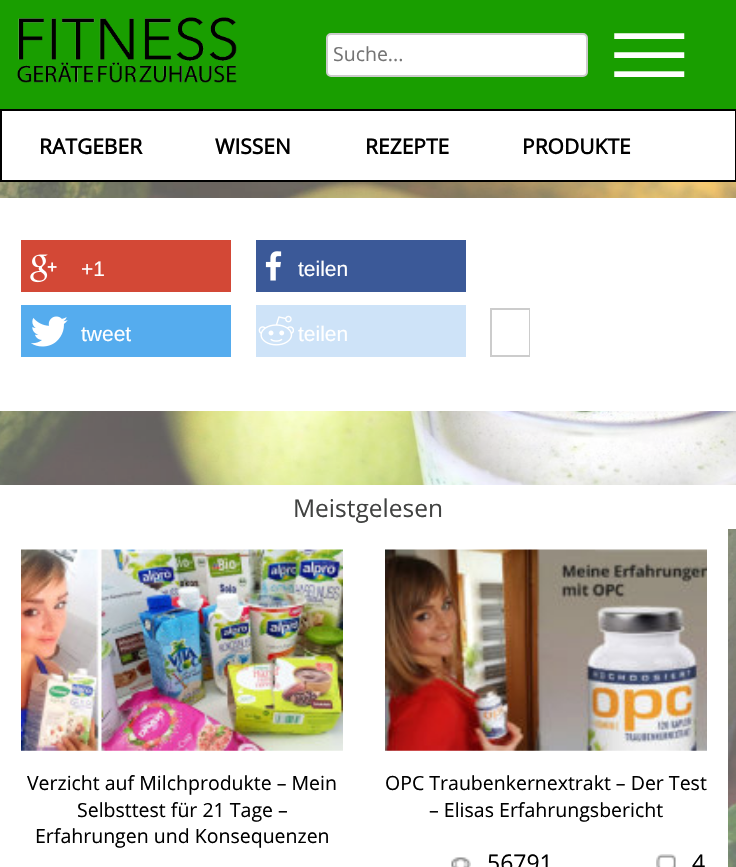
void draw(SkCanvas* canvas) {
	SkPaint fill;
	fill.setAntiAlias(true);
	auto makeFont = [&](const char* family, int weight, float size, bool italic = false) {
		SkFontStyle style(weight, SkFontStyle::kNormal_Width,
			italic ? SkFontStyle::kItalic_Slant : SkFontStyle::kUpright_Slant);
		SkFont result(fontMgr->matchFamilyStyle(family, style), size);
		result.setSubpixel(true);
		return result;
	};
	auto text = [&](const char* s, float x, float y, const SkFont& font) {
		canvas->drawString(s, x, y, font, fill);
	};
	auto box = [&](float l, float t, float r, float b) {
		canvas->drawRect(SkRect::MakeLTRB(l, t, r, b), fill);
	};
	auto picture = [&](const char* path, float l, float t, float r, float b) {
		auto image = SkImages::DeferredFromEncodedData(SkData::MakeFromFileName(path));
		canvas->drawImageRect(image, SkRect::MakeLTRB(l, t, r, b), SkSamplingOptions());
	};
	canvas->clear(0xFFFFFFFF);
	picture("image0.png", 0, 182, 736, 867);
	fill.setColor(0xFF199E00);
	box(0, 0, 736, 109);
	picture("image1.png", 17, 17, 237, 83);
	fill.setColor(0xFFFFFFFF);
	canvas->drawRoundRect(SkRect::MakeLTRB(327, 34, 587, 76), 4, 4, fill);
	fill.setStyle(SkPaint::kStroke_Style);
	fill.setStrokeWidth(2);
	fill.setColor(0xFFCCCCCC);
	canvas->drawRoundRect(SkRect::MakeLTRB(327, 34, 587, 76), 4, 4, fill);
	picture("image2.png", 614, 33, 685, 77);
	fill.setColor(0xFF000000);
	canvas->drawRect(SkRect::MakeLTRB(1, 110, 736, 181), fill);
	fill.setStyle(SkPaint::kFill_Style);
	fill.setColor(0x5CFFFFFF);
	box(0, 182, 736, 867);
	fill.setColor(0xFFFFFFFF);
	box(0, 198, 736, 411);
	fill.setColor(0xFFD34836);
	box(21, 240, 231, 292);
	picture("image3.png", 30, 254, 57, 283);
	fill.setColor(0xFF3B5998);
	box(256, 240, 466, 292);
	picture("image4.png", 265, 251, 282, 281);
	fill.setColor(0xFF55ACEE);
	box(21, 305, 231, 357);
	picture("image5.png", 31, 316, 68, 347);
	fill.setColor(0xFFCEE3F8);
	box(256, 305, 466, 357);
	picture("image6.png", 258, 315, 294, 346);
	fill.setStyle(SkPaint::kStroke_Style);
	fill.setColor(0xFFCCCCCC);
	canvas->drawRect(SkRect::MakeLTRB(491, 309, 529, 356), fill);
	fill.setStyle(SkPaint::kFill_Style);
	fill.setColor(0xFFFFFFFF);
	box(528, 310, 529, 355);
	box(0, 485, 736, 529);
	box(0, 529, 728, 867);
	picture("image7.png", 21, 549, 343, 751);
	picture("image8.png", 385, 549, 707, 751);
	picture("image9.png", 451, 857, 471, 867);
	picture("image10.png", 656, 854, 676, 867);
	auto font1 = makeFont("Open Sans", 400, 19.5f);
	fill.setColor(0xFF757575);
	text("Suche...", 333, 61, font1);
	auto font2 = makeFont("Open Sans", 700, 21);
	fill.setColor(0xFF000000);
	text("RATGEBER", 39, 154, font2);
	text("WISSEN", 215, 154, font2);
	text("REZEPTE", 365, 154, font2);
	text("PRODUKTE", 522, 154, font2);
	auto font3 = makeFont("Liberation Sans", 400, 21);
	fill.setColor(0xFFFFFFFF);
	text("+1", 81, 276, font3);
	text("teilen", 298, 276, font3);
	text("tweet", 81, 341, font3);
	text("teilen", 298, 341, font3);
	auto font4 = makeFont("Open Sans", 400, 24.5f);
	fill.setColor(0xFF414241);
	text("Meistgelesen", 293, 517, font4);
	fill.setColor(0xFF000000);
	text("Verzicht auf Milchprodukte – Mein", 27, 790, font1);
	text("Selbsttest für 21 Tage –", 77, 817, font1);
	text("Erfahrungen und Konsequenzen", 35, 843, font1);
	text("OPC Traubenkernextrakt – Der Test", 385, 790, font1);
	text("– Elisas Erfahrungsbericht", 429, 817, font1);
	auto font5 = makeFont("Open Sans", 400, 23);
	text("56791", 487, 871, font5);
	text("4", 692, 871, font5);
}
